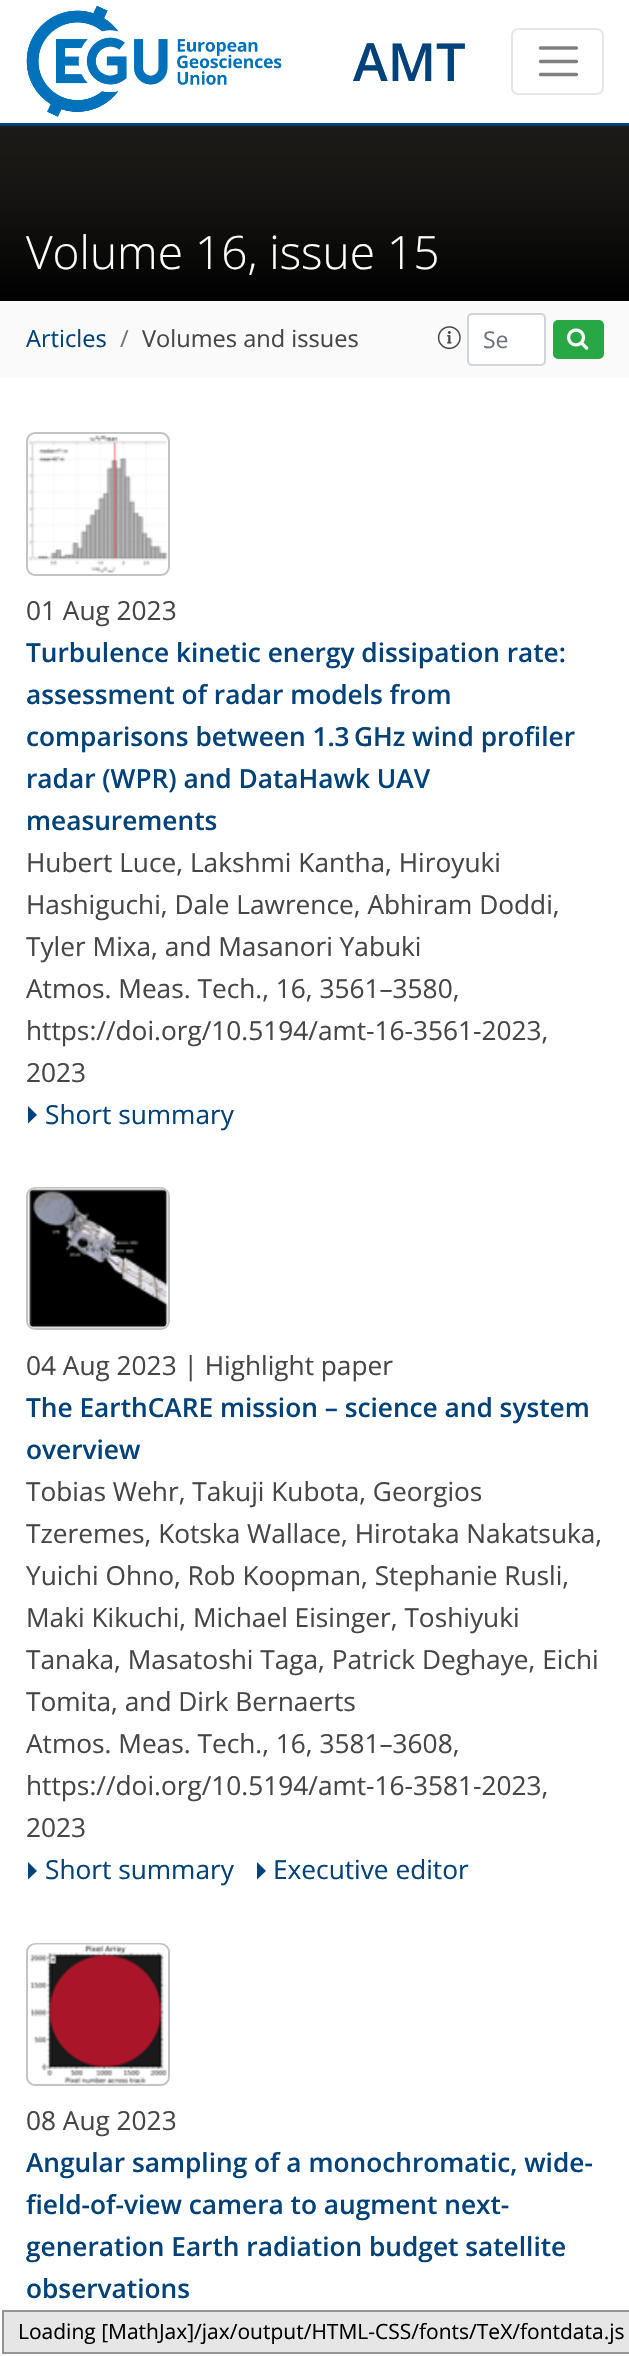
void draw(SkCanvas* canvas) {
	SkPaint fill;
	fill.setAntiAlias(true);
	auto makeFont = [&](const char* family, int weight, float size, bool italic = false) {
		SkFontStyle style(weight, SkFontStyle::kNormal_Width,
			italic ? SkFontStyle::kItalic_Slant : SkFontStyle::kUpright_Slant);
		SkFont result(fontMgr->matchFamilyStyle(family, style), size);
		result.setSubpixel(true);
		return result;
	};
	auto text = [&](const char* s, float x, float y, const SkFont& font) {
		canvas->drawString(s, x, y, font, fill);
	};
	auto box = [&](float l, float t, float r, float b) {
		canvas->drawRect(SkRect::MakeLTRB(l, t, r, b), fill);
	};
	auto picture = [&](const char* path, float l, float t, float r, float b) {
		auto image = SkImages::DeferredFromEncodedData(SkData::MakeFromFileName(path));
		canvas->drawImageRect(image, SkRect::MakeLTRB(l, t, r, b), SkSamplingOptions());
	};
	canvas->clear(0xFFFFFFFF);
	picture("image0.png", 26, 6, 282, 117);
	fill.setStyle(SkPaint::kStroke_Style);
	fill.setStrokeWidth(2);
	fill.setColor(0xFFE6E6E6);
	canvas->drawRoundRect(SkRect::MakeLTRB(512, 29, 603, 94), 6, 6, fill);
	fill.setStrokeWidth(3.3f);
	fill.setStrokeCap(SkPaint::kRound_Cap);
	fill.setColor(0xFF808080);
	canvas->drawPath(SkPathBuilder().moveTo(540.5f, 48).lineTo(576.5f, 48).moveTo(540.5f, 61.5f).lineTo(576.5f, 61.5f).moveTo(540.5f, 74.5f).lineTo(576.5f, 74.5f).detach(), fill);
	fill.setStyle(SkPaint::kFill_Style);
	fill.setColor(0xFF004279);
	box(0, 123, 629, 126);
	{
		const SkColor colors[] = {0xFF000000, 0xFF070706, 0xFF0D0C0B, 0xFF11100E, 0xFF141311, 0xFF171513, 0xFF191714, 0xFF1A1815, 0xFF1B1916, 0xFF1B1917, 0xFF1C1A17, 0xFF1C1A17};
		const float stops[] = {0, 0.19f, 0.34f, 0.47f, 0.56f, 0.65f, 0.73f, 0.8f, 0.86f, 0.91f, 0.95f, 1};
		const SkPoint ends[] = {{315, 301}, {315, 126}};
		fill.setShader(SkGradientShader::MakeLinear(ends, colors, stops, 12, SkTileMode::kClamp));
		fill.setAlpha(255);
	}
	box(0, 126, 629, 301);
	fill.setShader(nullptr);
	fill.setColor(0xFFFAFAFA);
	box(0, 301, 629, 378);
	picture("image1.png", 437, 326, 461, 350);
	fill.setColor(0xFFFFFFFF);
	canvas->drawRoundRect(SkRect::MakeLTRB(468, 314, 545, 365), 4, 4, fill);
	fill.setStyle(SkPaint::kStroke_Style);
	fill.setStrokeWidth(2);
	fill.setStrokeCap(SkPaint::kButt_Cap);
	fill.setColor(0xFFCED4DA);
	canvas->drawRoundRect(SkRect::MakeLTRB(468, 314, 545, 365), 4, 4, fill);
	fill.setStyle(SkPaint::kFill_Style);
	fill.setColor(0xFF28A745);
	canvas->drawRoundRect(SkRect::MakeLTRB(554, 321, 603, 358), 4, 4, fill);
	fill.setStyle(SkPaint::kStroke_Style);
	canvas->drawRoundRect(SkRect::MakeLTRB(554, 321, 603, 358), 4, 4, fill);
	picture("image2.png", 567, 328, 589, 350);
	fill.setStyle(SkPaint::kFill_Style);
	fill.setColor(0xFFF5F5F5);
	canvas->drawRoundRect(SkRect::MakeLTRB(27, 433, 169, 575), 8, 8, fill);
	fill.setStyle(SkPaint::kStroke_Style);
	fill.setColor(0xFFC3C3C3);
	canvas->drawRoundRect(SkRect::MakeLTRB(27, 433, 169, 575), 8, 8, fill);
	picture("image3.png", 28, 434, 168, 574);
	fill.setStyle(SkPaint::kFill_Style);
	fill.setColor(0xFF004279);
	canvas->drawPath(SkPathBuilder().moveTo(28, 1123.5f).lineTo(28, 1106).lineTo(37, 1115).close().detach(), fill);
	fill.setColor(0xFFF5F5F5);
	canvas->drawRoundRect(SkRect::MakeLTRB(27, 1188, 169, 1329), 8, 8, fill);
	fill.setStyle(SkPaint::kStroke_Style);
	fill.setColor(0xFFC3C3C3);
	canvas->drawRoundRect(SkRect::MakeLTRB(27, 1188, 169, 1329), 8, 8, fill);
	picture("image4.png", 28, 1188, 168, 1328);
	fill.setStyle(SkPaint::kFill_Style);
	fill.setColor(0xFF004279);
	canvas->drawPath(SkPathBuilder().moveTo(28, 1879.5f).lineTo(28, 1862).lineTo(37, 1871).close().detach(), fill);
	canvas->drawPath(SkPathBuilder().moveTo(257, 1879.5f).lineTo(257, 1862).lineTo(266, 1871).close().detach(), fill);
	fill.setColor(0xFFF5F5F5);
	canvas->drawRoundRect(SkRect::MakeLTRB(27, 1944, 169, 2085), 8, 8, fill);
	fill.setStyle(SkPaint::kStroke_Style);
	fill.setColor(0xFFC3C3C3);
	canvas->drawRoundRect(SkRect::MakeLTRB(27, 1944, 169, 2085), 8, 8, fill);
	picture("image5.png", 28, 1944, 168, 2084);
	fill.setStyle(SkPaint::kFill_Style);
	fill.setColor(0xFFE6E6E6);
	canvas->drawRect(SkRect::MakeLTRB(3, 2311, 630, 2353), fill);
	fill.setStyle(SkPaint::kStroke_Style);
	fill.setColor(0xFF959595);
	canvas->drawRect(SkRect::MakeLTRB(3, 2311, 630, 2353), fill);
	auto font1 = makeFont("Open Sans", 600, 52.5f);
	fill.setStyle(SkPaint::kFill_Style);
	fill.setColor(0xFF004279);
	text("AMT", 353, 81, font1);
	auto font2 = makeFont("Open Sans", 300, 46);
	fill.setColor(0xFFFFFFFF);
	text("Volume 16, issue 15", 26, 269, font2);
	auto font3 = makeFont("Open Sans", 400, 23.6f);
	fill.setColor(0xFF004279);
	text("Articles", 26, 347, font3);
	fill.setColor(0xFF6C757D);
	text("/", 120, 347, font3);
	fill.setColor(0xFF464646);
	text("Volumes and issues", 142, 347, font3);
	auto font4 = makeFont("Open Sans", 400, 23);
	fill.setColor(0xFF6C757D);
	text("Se", 483, 348, font4);
	auto font5 = makeFont("Open Sans", 400, 26.25f);
	fill.setColor(0xFF464646);
	text("01 Aug 2023", 26, 620, font5);
	auto font6 = makeFont("Open Sans", 600, 26.25f);
	fill.setColor(0xFF004279);
	text("Turbulence kinetic energy dissipation rate:", 26, 662, font6);
	text("assessment of radar models from", 26, 704, font6);
	text("comparisons between 1.3 GHz wind profiler", 26, 746, font6);
	text("radar (WPR) and DataHawk UAV", 26, 788, font6);
	text("measurements", 26, 830, font6);
	fill.setColor(0xFF464646);
	text("Hubert Luce, Lakshmi Kantha, Hiroyuki", 26, 872, font5);
	text("Hashiguchi, Dale Lawrence, Abhiram Doddi,", 26, 914, font5);
	text("Tyler Mixa, and Masanori Yabuki", 26, 956, font5);
	text("Atmos. Meas. Tech., 16, 3561–3580,", 26, 998, font5);
	text("https://doi.org/10.5194/amt-16-3561-2023,", 26, 1040, font5);
	text("2023", 26, 1082, font5);
	fill.setColor(0xFF004279);
	text("Short summary", 45, 1124, font5);
	fill.setColor(0xFF464646);
	text("04 Aug 2023 | Highlight paper", 26, 1375, font5);
	fill.setColor(0xFF004279);
	text("The EarthCARE mission – science and system", 26, 1417, font6);
	text("overview", 26, 1459, font6);
	fill.setColor(0xFF464646);
	text("Tobias Wehr, Takuji Kubota, Georgios", 26, 1501, font5);
	text("Tzeremes, Kotska Wallace, Hirotaka Nakatsuka,", 26, 1543, font5);
	text("Yuichi Ohno, Rob Koopman, Stephanie Rusli,", 26, 1585, font5);
	text("Maki Kikuchi, Michael Eisinger, Toshiyuki", 26, 1627, font5);
	text("Tanaka, Masatoshi Taga, Patrick Deghaye, Eichi", 26, 1669, font5);
	text("Tomita, and Dirk Bernaerts", 26, 1711, font5);
	text("Atmos. Meas. Tech., 16, 3581–3608,", 26, 1753, font5);
	text("https://doi.org/10.5194/amt-16-3581-2023,", 26, 1795, font5);
	text("2023", 26, 1837, font5);
	fill.setColor(0xFF004279);
	text("Short summary", 45, 1879, font5);
	text("Executive editor", 273, 1879, font5);
	fill.setColor(0xFF464646);
	text("08 Aug 2023", 26, 2130, font5);
	fill.setColor(0xFF004279);
	text("Angular sampling of a monochromatic, wide-", 26, 2172, font6);
	text("field-of-view camera to augment next-", 26, 2214, font6);
	text("generation Earth radiation budget satellite", 26, 2256, font6);
	text("observations", 26, 2298, font6);
	auto font7 = makeFont("Open Sans", 400, 21);
	fill.setColor(0xFF000000);
	text("Loading [MathJax]/jax/output/HTML-CSS/fonts/TeX/fontdata.js", 18, 2339, font7);
}
